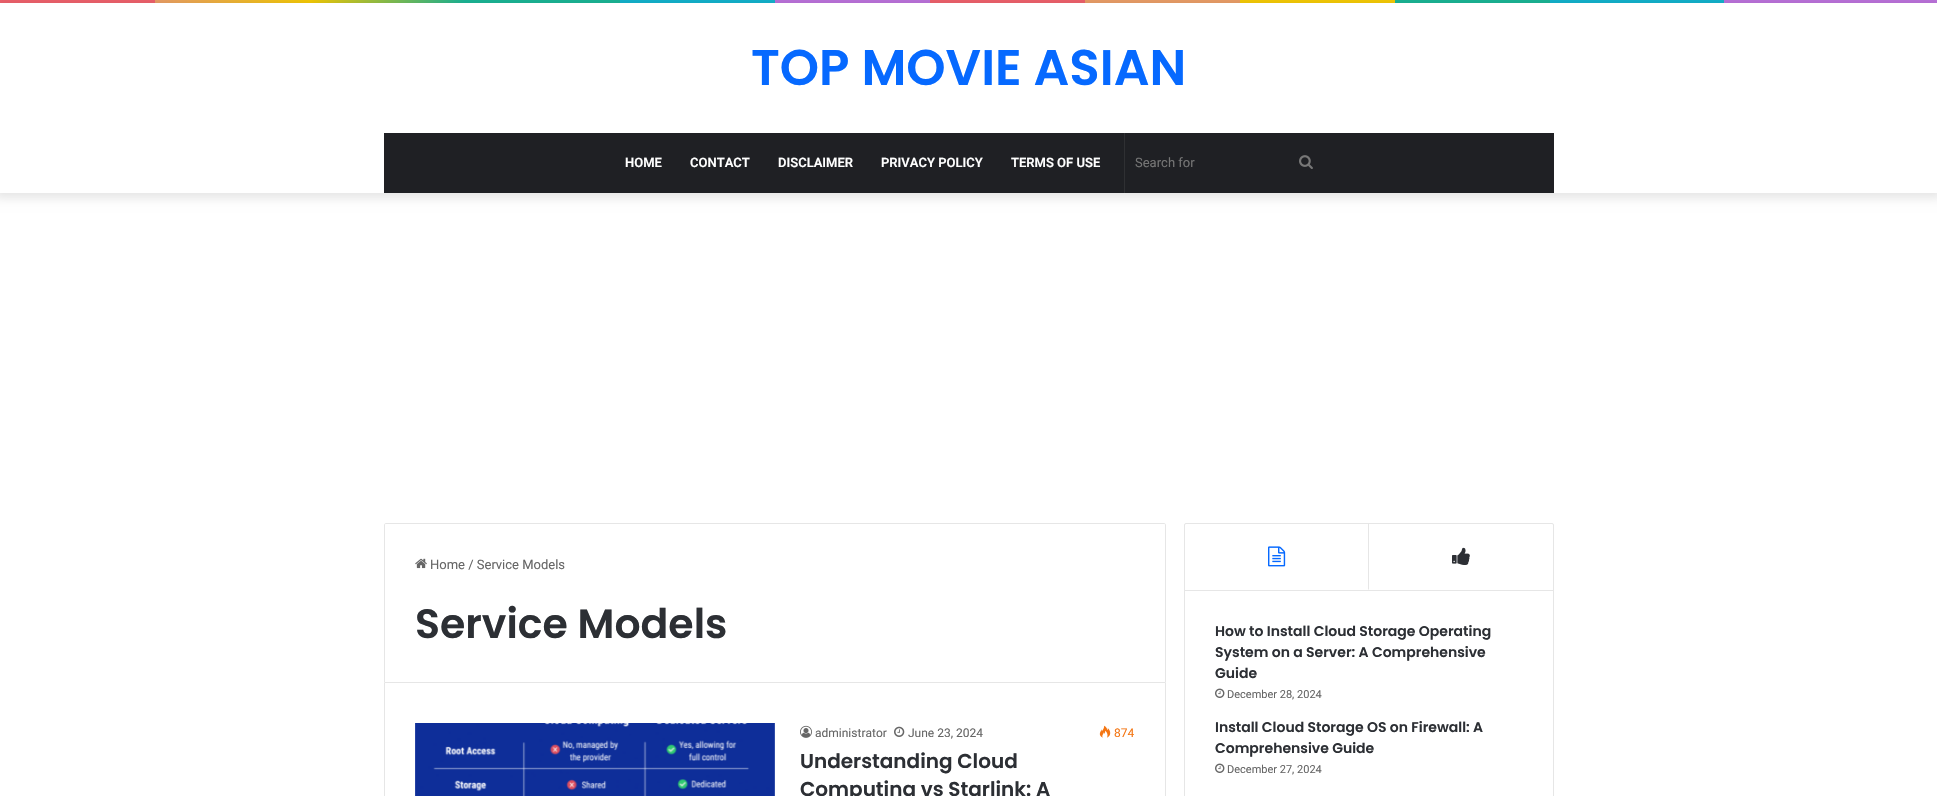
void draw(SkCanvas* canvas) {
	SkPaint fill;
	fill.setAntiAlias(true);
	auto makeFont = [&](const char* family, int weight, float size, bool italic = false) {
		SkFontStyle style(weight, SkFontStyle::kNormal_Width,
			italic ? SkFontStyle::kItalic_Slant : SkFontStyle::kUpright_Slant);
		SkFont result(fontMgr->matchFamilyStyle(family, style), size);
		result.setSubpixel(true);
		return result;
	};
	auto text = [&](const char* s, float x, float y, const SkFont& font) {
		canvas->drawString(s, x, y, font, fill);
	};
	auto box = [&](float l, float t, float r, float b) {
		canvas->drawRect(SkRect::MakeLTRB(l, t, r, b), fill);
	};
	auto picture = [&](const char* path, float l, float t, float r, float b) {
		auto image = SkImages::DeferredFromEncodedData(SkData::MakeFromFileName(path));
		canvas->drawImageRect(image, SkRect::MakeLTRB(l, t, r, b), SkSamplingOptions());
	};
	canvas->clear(0xFFFFFFFF);
	{
		const SkColor colors[] = {0xFFF76570, 0xFFF76570, 0xFFF3A46B, 0xFFFFD205, 0xFF1BBC9B, 0xFF1BBC9B, 0xFF14B9D5, 0xFF14B9D5, 0xFFC377E4, 0xFFC377E4, 0xFFF76570, 0xFFF76570, 0xFFF3A46B, 0xFFF3A46B, 0xFFFFD205, 0xFFFFD205, 0xFF1BBC9B, 0xFF1BBC9B, 0xFF14B9D5, 0xFF14B9D5, 0xFFC377E4, 0xFFC377E4};
		const float stops[] = {0, 0.08f, 0.08f, 0.16f, 0.24f, 0.32f, 0.32f, 0.4f, 0.4f, 0.48f, 0.48f, 0.56f, 0.56f, 0.64f, 0.64f, 0.72f, 0.72f, 0.8f, 0.8f, 0.89f, 0.89f, 1};
		const SkPoint ends[] = {{0, 1.5f}, {1937, 1.5f}};
		fill.setShader(SkGradientShader::MakeLinear(ends, colors, stops, 22, SkTileMode::kClamp));
		fill.setAlpha(255);
	}
	box(0, 0, 1937, 3);
	canvas->save();
	canvas->clipPath(SkPathBuilder(SkPathFillType::kEvenOdd).moveTo(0, 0).lineTo(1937, 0).lineTo(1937, 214).lineTo(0, 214).close().moveTo(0, 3).lineTo(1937, 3).lineTo(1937, 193).lineTo(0, 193).close().detach(), true);
	fill.setShader(nullptr);
	fill.setColor(0x1A000000);
	fill.setMaskFilter(SkMaskFilter::MakeBlur(kNormal_SkBlurStyle, 5));
	canvas->drawRect(SkRect::MakeLTRB(-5, -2, 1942, 198), fill);
	fill.setMaskFilter(nullptr);
	canvas->restore();
	fill.setColor(0xFF1F2024);
	box(384, 133, 1554, 193);
	fill.setColor(0xFF2F3033);
	box(1124, 133, 1125, 193);
	picture("image0.png", 1299, 155, 1313, 169);
	fill.setStyle(SkPaint::kStroke_Style);
	fill.setStrokeWidth(1);
	fill.setColor(0xFFE6E6E6);
	canvas->drawPath(SkPathBuilder().moveTo(386, 523.5f).lineTo(1164, 523.5f).cubicTo(1165, 523.5f, 1165.5f, 524, 1165.5f, 525).lineTo(1165.5f, 682.5f).lineTo(384.5f, 682.5f).lineTo(384.5f, 525).cubicTo(384.5f, 524, 385, 523.5f, 386, 523.5f).close().detach(), fill);
	picture("image1.png", 415, 558, 427, 569);
	fill.setStyle(SkPaint::kFill_Style);
	box(1165, 683, 1166, 796);
	box(384, 683, 385, 796);
	picture("image2.png", 415, 723, 775, 796);
	picture("image3.png", 800, 725, 812, 738);
	picture("image4.png", 894, 726, 905, 737);
	picture("image5.png", 1099, 725, 1111, 738);
	fill.setStyle(SkPaint::kStroke_Style);
	canvas->drawRoundRect(SkRect::MakeLTRB(1184.5f, 523.5f, 1553.5f, 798.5f), 1.5f, 1.5f, fill);
	fill.setStyle(SkPaint::kFill_Style);
	box(1185, 590, 1553, 591);
	canvas->drawPath(SkPathBuilder().moveTo(1369, 524).lineTo(1369, 590).lineTo(1368, 589).lineTo(1368, 524).close().detach(), fill);
	picture("image6.png", 1268, 546, 1286, 567);
	picture("image7.png", 1452, 547, 1470, 565);
	picture("image8.png", 1215, 688, 1225, 698);
	picture("image8.png", 1215, 763, 1225, 773);
	auto font1 = makeFont("Poppins", 600, 50);
	fill.setColor(0xFF0669FF);
	text("TOP MOVIE ASIAN", 751, 85, font1);
	auto font2 = makeFont("Roboto", 600, 13);
	fill.setColor(0xFFFFFFFF);
	text("HOME", 625, 167, font2);
	text("CONTACT", 690, 167, font2);
	text("DISCLAIMER", 778, 167, font2);
	text("PRIVACY POLICY", 881, 167, font2);
	text("TERMS OF USE", 1011, 167, font2);
	auto font3 = makeFont("Roboto", 400, 13);
	fill.setColor(0xFF757575);
	text("Search for", 1135, 167, font3);
	fill.setColor(0xFF666666);
	text("Home / Service Models", 430, 569, font3);
	auto font4 = makeFont("Poppins", 600, 41);
	fill.setColor(0xFF2C2F34);
	text("Service Models", 415, 638, font4);
	auto font5 = makeFont("Roboto", 400, 12);
	fill.setColor(0xFF666666);
	text("administrator", 815, 737, font5);
	text("June 23, 2024", 908, 737, font5);
	fill.setColor(0xFFF47512);
	text("874", 1114, 737, font5);
	auto font6 = makeFont("Poppins", 600, 20);
	fill.setColor(0xFF2C2F34);
	text("Understanding Cloud", 800, 768, font6);
	text("Computing vs Starlink: A", 800, 796, font6);
	auto font7 = makeFont("Poppins", 600, 14);
	text("How to Install Cloud Storage Operating", 1215, 636, font7);
	text("System on a Server: A Comprehensive", 1215, 657, font7);
	text("Guide", 1215, 678, font7);
	auto font8 = makeFont("Roboto", 400, 11);
	fill.setColor(0xFF666666);
	text("December 28, 2024", 1227, 698, font8);
	fill.setColor(0xFF2C2F34);
	text("Install Cloud Storage OS on Firewall: A", 1215, 732, font7);
	text("Comprehensive Guide", 1215, 753, font7);
	fill.setColor(0xFF666666);
	text("December 27, 2024", 1227, 773, font8);
}
